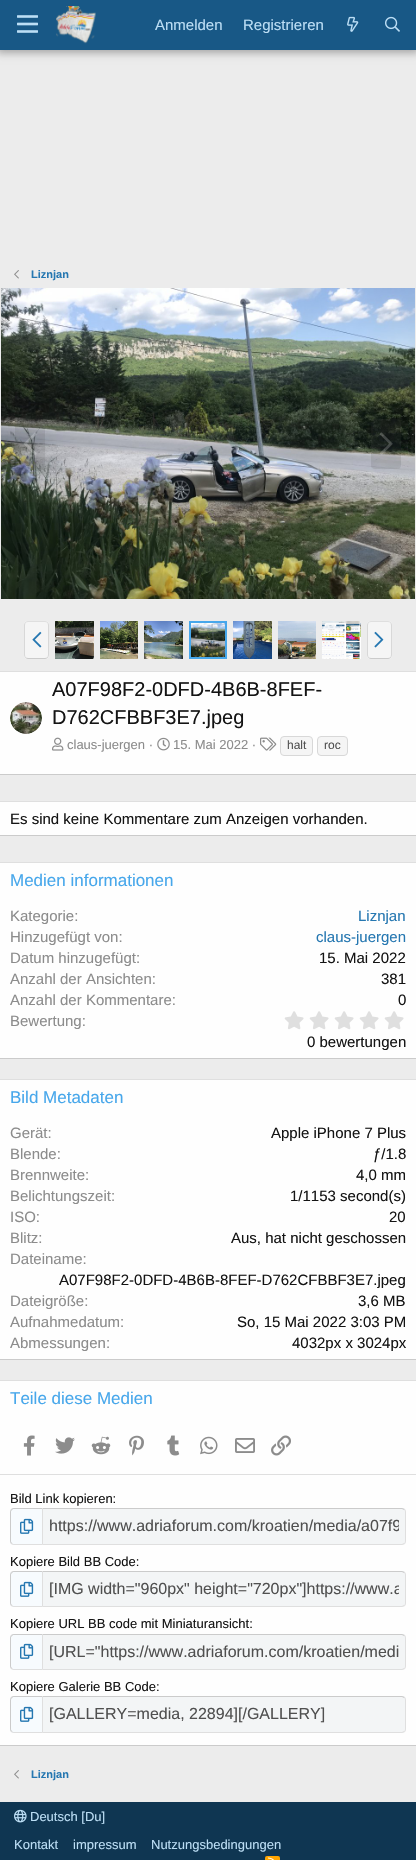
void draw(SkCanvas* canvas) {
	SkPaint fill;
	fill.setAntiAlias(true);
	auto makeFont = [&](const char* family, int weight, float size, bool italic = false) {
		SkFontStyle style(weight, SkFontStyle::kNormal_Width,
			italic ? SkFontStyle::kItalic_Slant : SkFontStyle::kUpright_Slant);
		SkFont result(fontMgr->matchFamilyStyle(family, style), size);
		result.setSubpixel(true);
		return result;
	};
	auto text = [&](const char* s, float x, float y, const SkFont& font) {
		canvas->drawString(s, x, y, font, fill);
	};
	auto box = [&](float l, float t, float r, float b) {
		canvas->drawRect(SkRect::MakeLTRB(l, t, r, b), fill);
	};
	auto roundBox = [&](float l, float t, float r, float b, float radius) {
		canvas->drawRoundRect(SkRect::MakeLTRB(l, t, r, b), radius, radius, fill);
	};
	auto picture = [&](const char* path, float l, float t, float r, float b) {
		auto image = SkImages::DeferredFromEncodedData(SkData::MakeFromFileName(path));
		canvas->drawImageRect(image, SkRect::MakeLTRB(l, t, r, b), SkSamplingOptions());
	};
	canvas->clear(0xFFECECEC);
	fill.setColor(0x4D000000);
	fill.setMaskFilter(SkMaskFilter::MakeBlur(kNormal_SkBlurStyle, 4));
	canvas->drawRect(SkRect::MakeLTRB(-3, -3, 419, 53), fill);
	fill.setMaskFilter(nullptr);
	fill.setColor(0xFF185886);
	box(0, 0, 416, 50);
	picture("image0.png", 17, 15, 38, 33);
	picture("image1.png", 56, 6, 96, 44);
	picture("image2.png", 347, 16, 359, 32);
	picture("image3.png", 385, 16, 400, 32);
	picture("image4.png", 14, 270, 19, 279);
	picture("image5.png", 1, 288, 415, 599);
	fill.setColor(0x24505050);
	roundBox(15, 419, 45, 469, 4);
	picture("image6.png", 23, 432, 37, 455);
	roundBox(371, 419, 401, 469, 4);
	picture("image7.png", 379, 432, 393, 455);
	fill.setColor(0xFFF5F5F5);
	roundBox(24, 621, 49, 659, 4);
	fill.setStyle(SkPaint::kStroke_Style);
	fill.setStrokeWidth(1);
	fill.setColor(0xFFDFDFDF);
	canvas->drawPath(SkPathBuilder().moveTo(25.5f, 622.5f).cubicTo(26, 622, 27, 621.5f, 28, 621.5f).lineTo(45, 621.5f).cubicTo(46, 621.5f, 47, 622, 47.5f, 622.5f).detach(), fill);
	fill.setColor(0xFFD8D8D8);
	canvas->drawPath(SkPathBuilder().moveTo(47.5f, 622.5f).cubicTo(48, 623, 48.5f, 624, 48.5f, 625).lineTo(48.5f, 655).cubicTo(48.5f, 656, 48, 657, 47.5f, 657.5f).detach(), fill);
	fill.setColor(0xFFCBCBCB);
	canvas->drawPath(SkPathBuilder().moveTo(47.5f, 657.5f).cubicTo(47, 658, 46, 658.5f, 45, 658.5f).lineTo(28, 658.5f).cubicTo(27, 658.5f, 26, 658, 25.5f, 657.5f).detach(), fill);
	fill.setColor(0xFFD8D8D8);
	canvas->drawPath(SkPathBuilder().moveTo(25.5f, 657.5f).cubicTo(25, 657, 24.5f, 656, 24.5f, 655).lineTo(24.5f, 625).cubicTo(24.5f, 624, 25, 623, 25.5f, 622.5f).detach(), fill);
	picture("image8.png", 32, 631, 42, 648);
	picture("image9.png", 55, 621, 94, 659);
	picture("image10.png", 100, 621, 138, 659);
	picture("image11.png", 144, 621, 183, 659);
	fill.setStrokeWidth(2);
	fill.setColor(0xFF47A7EB);
	canvas->drawRect(SkRect::MakeLTRB(190, 622, 226, 658), fill);
	picture("image12.png", 191, 623, 225, 657);
	picture("image13.png", 233, 621, 272, 659);
	picture("image14.png", 278, 621, 316, 659);
	picture("image15.png", 322, 621, 361, 659);
	fill.setStyle(SkPaint::kFill_Style);
	fill.setColor(0xFFF5F5F5);
	roundBox(367, 621, 392, 659, 4);
	fill.setStyle(SkPaint::kStroke_Style);
	fill.setStrokeWidth(1);
	fill.setColor(0xFFDFDFDF);
	canvas->drawPath(SkPathBuilder().moveTo(368.5f, 622.5f).cubicTo(369, 622, 370, 621.5f, 371, 621.5f).lineTo(388, 621.5f).cubicTo(389, 621.5f, 390, 622, 390.5f, 622.5f).detach(), fill);
	fill.setColor(0xFFD8D8D8);
	canvas->drawPath(SkPathBuilder().moveTo(390.5f, 622.5f).cubicTo(391, 623, 391.5f, 624, 391.5f, 625).lineTo(391.5f, 655).cubicTo(391.5f, 656, 391, 657, 390.5f, 657.5f).detach(), fill);
	fill.setColor(0xFFCBCBCB);
	canvas->drawPath(SkPathBuilder().moveTo(390.5f, 657.5f).cubicTo(390, 658, 389, 658.5f, 388, 658.5f).lineTo(371, 658.5f).cubicTo(370, 658.5f, 369, 658, 368.5f, 657.5f).detach(), fill);
	fill.setColor(0xFFD8D8D8);
	canvas->drawPath(SkPathBuilder().moveTo(368.5f, 657.5f).cubicTo(368, 657, 367.5f, 656, 367.5f, 655).lineTo(367.5f, 625).cubicTo(367.5f, 624, 368, 623, 368.5f, 622.5f).detach(), fill);
	picture("image16.png", 374, 631, 384, 648);
	fill.setStyle(SkPaint::kFill_Style);
	fill.setColor(0xFFFEFEFE);
	box(0, 672, 416, 774);
	fill.setColor(0xFFDFDFDF);
	box(0, 671, 416, 672);
	fill.setColor(0xFFCBCBCB);
	box(0, 774, 416, 775);
	picture("image17.png", 10, 702, 42, 734);
	picture("image18.png", 52, 737, 64, 751);
	picture("image19.png", 157, 737, 170, 751);
	picture("image20.png", 260, 737, 277, 751);
	fill.setColor(0xFFF5F5F5);
	canvas->drawRoundRect(SkRect::MakeLTRB(280.5f, 736.5f, 312.5f, 755.5f), 3.5f, 3.5f, fill);
	fill.setStyle(SkPaint::kStroke_Style);
	fill.setColor(0xFFD8D8D8);
	canvas->drawRoundRect(SkRect::MakeLTRB(280.5f, 736.5f, 312.5f, 755.5f), 3.5f, 3.5f, fill);
	fill.setStyle(SkPaint::kFill_Style);
	fill.setColor(0xFFF5F5F5);
	canvas->drawRoundRect(SkRect::MakeLTRB(317.5f, 736.5f, 347.5f, 755.5f), 3.5f, 3.5f, fill);
	fill.setStyle(SkPaint::kStroke_Style);
	fill.setColor(0xFFD8D8D8);
	canvas->drawRoundRect(SkRect::MakeLTRB(317.5f, 736.5f, 347.5f, 755.5f), 3.5f, 3.5f, fill);
	fill.setStyle(SkPaint::kFill_Style);
	fill.setColor(0xFFFEFEFE);
	box(0, 802, 416, 835);
	fill.setColor(0xFFDFDFDF);
	box(0, 801, 416, 802);
	fill.setColor(0xFFCBCBCB);
	box(0, 835, 416, 836);
	fill.setColor(0xFFFEFEFE);
	box(0, 863, 416, 1058);
	fill.setColor(0xFFDFDFDF);
	box(0, 862, 416, 863);
	fill.setColor(0xFFCBCBCB);
	box(0, 1058, 416, 1059);
	picture("image21.png", 284, 1011, 304, 1030);
	picture("image21.png", 309, 1011, 329, 1030);
	picture("image21.png", 334, 1011, 354, 1030);
	picture("image21.png", 359, 1011, 379, 1030);
	picture("image21.png", 384, 1011, 404, 1030);
	fill.setColor(0xFFFEFEFE);
	box(0, 1080, 416, 1359);
	fill.setColor(0xFFDFDFDF);
	box(0, 1079, 416, 1080);
	fill.setColor(0xFFCBCBCB);
	box(0, 1359, 416, 1360);
	fill.setColor(0xFFFEFEFE);
	box(0, 1381, 416, 1745);
	fill.setColor(0xFFDFDFDF);
	box(0, 1380, 416, 1381);
	fill.setColor(0xFFCBCBCB);
	box(0, 1745, 416, 1746);
	picture("image22.png", 23, 1435, 35, 1456);
	picture("image23.png", 55, 1437, 75, 1454);
	picture("image24.png", 91, 1436, 111, 1455);
	picture("image25.png", 129, 1435, 144, 1456);
	picture("image26.png", 167, 1435, 180, 1456);
	picture("image27.png", 200, 1436, 218, 1455);
	picture("image28.png", 235, 1438, 255, 1453);
	picture("image29.png", 271, 1435, 291, 1456);
	fill.setColor(0xFFDFDFDF);
	box(0, 1474, 416, 1475);
	fill.setColor(0xFFF7FBFE);
	canvas->drawPath(SkPathBuilder().moveTo(14, 1508).lineTo(42, 1508).lineTo(42, 1545).lineTo(14, 1545).cubicTo(12, 1545, 10, 1543, 10, 1541).lineTo(10, 1512).cubicTo(10, 1510, 12, 1508, 14, 1508).close().detach(), fill);
	fill.setColor(0xFFCBCBCB);
	canvas->drawPath(SkPathBuilder().moveTo(14, 1508).cubicTo(13, 1508, 12, 1508.5f, 11, 1509).lineTo(12, 1510).cubicTo(12.5f, 1509.5f, 13, 1509, 14, 1509).lineTo(42, 1509).lineTo(42, 1508).close().detach(), fill);
	fill.setColor(0xFFDFDFDF);
	canvas->drawPath(SkPathBuilder().moveTo(42, 1545).lineTo(42, 1544).lineTo(14, 1544).cubicTo(13, 1544, 12.5f, 1543.5f, 12, 1543).lineTo(11, 1544).cubicTo(12, 1544.5f, 13, 1545, 14, 1545).close().detach(), fill);
	fill.setColor(0xFFCBCBCB);
	canvas->drawPath(SkPathBuilder().moveTo(10, 1512).lineTo(10, 1541).cubicTo(10, 1542, 10.5f, 1543, 11, 1544).lineTo(12, 1543).cubicTo(11.5f, 1542.5f, 11, 1542, 11, 1541).lineTo(11, 1512).cubicTo(11, 1511, 11.5f, 1510.5f, 12, 1510).lineTo(11, 1509).cubicTo(10.5f, 1510, 10, 1511, 10, 1512).close().detach(), fill);
	picture("image30.png", 20, 1518, 34, 1534);
	fill.setColor(0xFFF3F5F6);
	canvas->drawPath(SkPathBuilder().moveTo(42, 1508).lineTo(402, 1508).cubicTo(404, 1508, 406, 1510, 406, 1512).lineTo(406, 1541).cubicTo(406, 1543, 404, 1545, 402, 1545).lineTo(42, 1545).close().detach(), fill);
	fill.setColor(0xFFCBCBCB);
	canvas->drawPath(SkPathBuilder().moveTo(42, 1508).lineTo(43, 1509).lineTo(402, 1509).lineTo(404, 1510).lineTo(405, 1509).lineTo(402, 1508).close().detach(), fill);
	fill.setColor(0xFFDFDFDF);
	canvas->drawPath(SkPathBuilder().moveTo(406, 1541).lineTo(406, 1512).cubicTo(406, 1511, 405.5f, 1510, 405, 1509).lineTo(404, 1510).cubicTo(405, 1510, 405, 1511, 405, 1512).lineTo(405, 1541).cubicTo(405, 1542, 405, 1543, 404, 1543).lineTo(405, 1544).cubicTo(405.5f, 1543, 406, 1542, 406, 1541).close().detach(), fill);
	canvas->drawPath(SkPathBuilder().moveTo(402, 1545).lineTo(405, 1544).lineTo(404, 1543).lineTo(402, 1544).lineTo(43, 1544).lineTo(42, 1545).close().detach(), fill);
	canvas->drawPath(SkPathBuilder().moveTo(42, 1508).lineTo(42, 1545).lineTo(43, 1544).lineTo(43, 1509).close().detach(), fill);
	fill.setColor(0xFFF7FBFE);
	canvas->drawPath(SkPathBuilder().moveTo(14, 1571).lineTo(42, 1571).lineTo(42, 1607).lineTo(14, 1607).cubicTo(12, 1607, 10, 1605, 10, 1603).lineTo(10, 1575).cubicTo(10, 1573, 12, 1571, 14, 1571).close().detach(), fill);
	fill.setColor(0xFFCBCBCB);
	canvas->drawPath(SkPathBuilder().moveTo(14, 1571).cubicTo(13, 1571, 12, 1571.5f, 11, 1572).lineTo(12, 1573).cubicTo(12.5f, 1572.5f, 13, 1572, 14, 1572).lineTo(42, 1572).lineTo(42, 1571).close().detach(), fill);
	fill.setColor(0xFFDFDFDF);
	canvas->drawPath(SkPathBuilder().moveTo(42, 1607).lineTo(42, 1606).lineTo(14, 1606).cubicTo(13, 1606, 12.5f, 1605.5f, 12, 1605).lineTo(11, 1606).cubicTo(12, 1606.5f, 13, 1607, 14, 1607).close().detach(), fill);
	fill.setColor(0xFFCBCBCB);
	canvas->drawPath(SkPathBuilder().moveTo(10, 1575).lineTo(10, 1603).cubicTo(10, 1604, 10.5f, 1605, 11, 1606).lineTo(12, 1605).cubicTo(11.5f, 1604.5f, 11, 1604, 11, 1603).lineTo(11, 1575).cubicTo(11, 1574, 11.5f, 1573.5f, 12, 1573).lineTo(11, 1572).cubicTo(10.5f, 1573, 10, 1574, 10, 1575).close().detach(), fill);
	picture("image30.png", 20, 1581, 34, 1597);
	fill.setColor(0xFFF3F5F6);
	canvas->drawPath(SkPathBuilder().moveTo(42, 1571).lineTo(402, 1571).cubicTo(404, 1571, 406, 1573, 406, 1575).lineTo(406, 1603).cubicTo(406, 1605, 404, 1607, 402, 1607).lineTo(42, 1607).close().detach(), fill);
	fill.setColor(0xFFCBCBCB);
	canvas->drawPath(SkPathBuilder().moveTo(42, 1571).lineTo(43, 1572).lineTo(402, 1572).lineTo(404, 1573).lineTo(405, 1572).lineTo(402, 1571).close().detach(), fill);
	fill.setColor(0xFFDFDFDF);
	canvas->drawPath(SkPathBuilder().moveTo(406, 1603).lineTo(406, 1575).cubicTo(406, 1574, 405.5f, 1573, 405, 1572).lineTo(404, 1573).cubicTo(405, 1573, 405, 1574, 405, 1575).lineTo(405, 1603).cubicTo(405, 1604, 405, 1605, 404, 1605).lineTo(405, 1606).cubicTo(405.5f, 1605, 406, 1604, 406, 1603).close().detach(), fill);
	canvas->drawPath(SkPathBuilder().moveTo(402, 1607).lineTo(405, 1606).lineTo(404, 1605).lineTo(402, 1606).lineTo(43, 1606).lineTo(42, 1607).close().detach(), fill);
	canvas->drawPath(SkPathBuilder().moveTo(42, 1571).lineTo(42, 1607).lineTo(43, 1606).lineTo(43, 1572).close().detach(), fill);
	fill.setColor(0xFFF7FBFE);
	canvas->drawPath(SkPathBuilder().moveTo(14, 1634).lineTo(42, 1634).lineTo(42, 1670).lineTo(14, 1670).cubicTo(12, 1670, 10, 1668, 10, 1666).lineTo(10, 1638).cubicTo(10, 1636, 12, 1634, 14, 1634).close().detach(), fill);
	fill.setColor(0xFFCBCBCB);
	canvas->drawPath(SkPathBuilder().moveTo(14, 1634).cubicTo(13, 1634, 12, 1634.5f, 11, 1635).lineTo(12, 1636).cubicTo(12.5f, 1635.5f, 13, 1635, 14, 1635).lineTo(42, 1635).lineTo(42, 1634).close().detach(), fill);
	fill.setColor(0xFFDFDFDF);
	canvas->drawPath(SkPathBuilder().moveTo(42, 1670).lineTo(42, 1669).lineTo(14, 1669).cubicTo(13, 1669, 12.5f, 1668.5f, 12, 1668).lineTo(11, 1669).cubicTo(12, 1669.5f, 13, 1670, 14, 1670).close().detach(), fill);
	fill.setColor(0xFFCBCBCB);
	canvas->drawPath(SkPathBuilder().moveTo(10, 1638).lineTo(10, 1666).cubicTo(10, 1667, 10.5f, 1668, 11, 1669).lineTo(12, 1668).cubicTo(11.5f, 1667.5f, 11, 1667, 11, 1666).lineTo(11, 1638).cubicTo(11, 1637, 11.5f, 1636.5f, 12, 1636).lineTo(11, 1635).cubicTo(10.5f, 1636, 10, 1637, 10, 1638).close().detach(), fill);
	picture("image30.png", 20, 1643, 34, 1659);
	fill.setColor(0xFFF3F5F6);
	canvas->drawPath(SkPathBuilder().moveTo(42, 1634).lineTo(402, 1634).cubicTo(404, 1634, 406, 1636, 406, 1638).lineTo(406, 1666).cubicTo(406, 1668, 404, 1670, 402, 1670).lineTo(42, 1670).close().detach(), fill);
	fill.setColor(0xFFCBCBCB);
	canvas->drawPath(SkPathBuilder().moveTo(42, 1634).lineTo(43, 1635).lineTo(402, 1635).lineTo(404, 1636).lineTo(405, 1635).lineTo(402, 1634).close().detach(), fill);
	fill.setColor(0xFFDFDFDF);
	canvas->drawPath(SkPathBuilder().moveTo(406, 1666).lineTo(406, 1638).cubicTo(406, 1637, 405.5f, 1636, 405, 1635).lineTo(404, 1636).cubicTo(405, 1636, 405, 1637, 405, 1638).lineTo(405, 1666).cubicTo(405, 1667, 405, 1668, 404, 1668).lineTo(405, 1669).cubicTo(405.5f, 1668, 406, 1667, 406, 1666).close().detach(), fill);
	canvas->drawPath(SkPathBuilder().moveTo(402, 1670).lineTo(405, 1669).lineTo(404, 1668).lineTo(402, 1669).lineTo(43, 1669).lineTo(42, 1670).close().detach(), fill);
	canvas->drawPath(SkPathBuilder().moveTo(42, 1634).lineTo(42, 1670).lineTo(43, 1669).lineTo(43, 1635).close().detach(), fill);
	fill.setColor(0xFFF7FBFE);
	canvas->drawPath(SkPathBuilder().moveTo(14, 1696).lineTo(42, 1696).lineTo(42, 1733).lineTo(14, 1733).cubicTo(12, 1733, 10, 1731, 10, 1729).lineTo(10, 1700).cubicTo(10, 1698, 12, 1696, 14, 1696).close().detach(), fill);
	fill.setColor(0xFFCBCBCB);
	canvas->drawPath(SkPathBuilder().moveTo(14, 1696).cubicTo(13, 1696, 12, 1696.5f, 11, 1697).lineTo(12, 1698).cubicTo(12.5f, 1697.5f, 13, 1697, 14, 1697).lineTo(42, 1697).lineTo(42, 1696).close().detach(), fill);
	fill.setColor(0xFFDFDFDF);
	canvas->drawPath(SkPathBuilder().moveTo(42, 1733).lineTo(42, 1732).lineTo(14, 1732).cubicTo(13, 1732, 12.5f, 1731.5f, 12, 1731).lineTo(11, 1732).cubicTo(12, 1732.5f, 13, 1733, 14, 1733).close().detach(), fill);
	fill.setColor(0xFFCBCBCB);
	canvas->drawPath(SkPathBuilder().moveTo(10, 1700).lineTo(10, 1729).cubicTo(10, 1730, 10.5f, 1731, 11, 1732).lineTo(12, 1731).cubicTo(11.5f, 1730.5f, 11, 1730, 11, 1729).lineTo(11, 1700).cubicTo(11, 1699, 11.5f, 1698.5f, 12, 1698).lineTo(11, 1697).cubicTo(10.5f, 1698, 10, 1699, 10, 1700).close().detach(), fill);
	picture("image30.png", 20, 1706, 34, 1722);
	fill.setColor(0xFFF3F5F6);
	canvas->drawPath(SkPathBuilder().moveTo(42, 1696).lineTo(402, 1696).cubicTo(404, 1696, 406, 1698, 406, 1700).lineTo(406, 1729).cubicTo(406, 1731, 404, 1733, 402, 1733).lineTo(42, 1733).close().detach(), fill);
	fill.setColor(0xFFCBCBCB);
	canvas->drawPath(SkPathBuilder().moveTo(42, 1696).lineTo(43, 1697).lineTo(402, 1697).lineTo(404, 1698).lineTo(405, 1697).lineTo(402, 1696).close().detach(), fill);
	fill.setColor(0xFFDFDFDF);
	canvas->drawPath(SkPathBuilder().moveTo(406, 1729).lineTo(406, 1700).cubicTo(406, 1699, 405.5f, 1698, 405, 1697).lineTo(404, 1698).cubicTo(405, 1698, 405, 1699, 405, 1700).lineTo(405, 1729).cubicTo(405, 1730, 405, 1731, 404, 1731).lineTo(405, 1732).cubicTo(405.5f, 1731, 406, 1730, 406, 1729).close().detach(), fill);
	canvas->drawPath(SkPathBuilder().moveTo(402, 1733).lineTo(405, 1732).lineTo(404, 1731).lineTo(402, 1732).lineTo(43, 1732).lineTo(42, 1733).close().detach(), fill);
	canvas->drawPath(SkPathBuilder().moveTo(42, 1696).lineTo(42, 1733).lineTo(43, 1732).lineTo(43, 1697).close().detach(), fill);
	picture("image4.png", 14, 1770, 19, 1779);
	fill.setColor(0xFF0F3652);
	box(0, 1802, 416, 1860);
	picture("image31.png", 14, 1809, 27, 1823);
	fill.setColor(0xFFFFA500);
	roundBox(265, 1856, 280, 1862, 2);
	picture("image32.png", 268, 1857, 274, 1860);
	auto font1 = makeFont("Liberation Sans", 400, 15);
	fill.setColor(0xFFBCDEF5);
	text("Anmelden", 155, 30, font1);
	text("Registrieren", 243, 30, font1);
	auto font2 = makeFont("Liberation Sans", 700, 11);
	fill.setColor(0xFF2577B1);
	text("Liznjan", 31, 278, font2);
	auto font3 = makeFont("Liberation Sans", 400, 20);
	fill.setColor(0xFF141414);
	text("A07F98F2-0DFD-4B6B-8FEF-", 52, 696, font3);
	text("D762CFBBF3E7.jpeg", 52, 724, font3);
	auto font4 = makeFont("Liberation Sans", 400, 13);
	fill.setColor(0xFF8C8C8C);
	text("claus-juergen ·", 67, 749, font4);
	text("15. Mai 2022 ·", 173, 749, font4);
	auto font5 = makeFont("Liberation Sans", 400, 12);
	fill.setColor(0xFF505050);
	text("halt", 287, 749, font5);
	text("roc", 324, 749, font5);
	fill.setColor(0xFF141414);
	text("Es sind keine Kommentare zum Anzeigen vorhanden.", 10, 824, font1);
	auto font6 = makeFont("Liberation Sans", 400, 17);
	fill.setColor(0xFF47A7EB);
	text("Medien informationen", 10, 886, font6);
	fill.setColor(0xFF8C8C8C);
	text("Kategorie:", 10, 921, font1);
	fill.setColor(0xFF2577B1);
	text("Liznjan", 358, 921, font1);
	fill.setColor(0xFF8C8C8C);
	text("Hinzugefügt von:", 10, 942, font1);
	fill.setColor(0xFF2577B1);
	text("claus-juergen", 316, 942, font1);
	fill.setColor(0xFF8C8C8C);
	text("Datum hinzugefügt:", 10, 963, font1);
	fill.setColor(0xFF141414);
	text("15. Mai 2022", 319, 963, font1);
	fill.setColor(0xFF8C8C8C);
	text("Anzahl der Ansichten:", 10, 984, font1);
	fill.setColor(0xFF141414);
	text("381", 381, 984, font1);
	fill.setColor(0xFF8C8C8C);
	text("Anzahl der Kommentare:", 10, 1005, font1);
	fill.setColor(0xFF141414);
	text("0", 398, 1005, font1);
	fill.setColor(0xFF8C8C8C);
	text("Bewertung:", 10, 1026, font1);
	fill.setColor(0xFF141414);
	text("0 bewertungen", 307, 1047, font1);
	fill.setColor(0xFF47A7EB);
	text("Bild Metadaten", 10, 1103, font6);
	fill.setColor(0xFF8C8C8C);
	text("Gerät:", 10, 1138, font1);
	fill.setColor(0xFF141414);
	text("Apple iPhone 7 Plus", 271, 1138, font1);
	fill.setColor(0xFF8C8C8C);
	text("Blende:", 10, 1159, font1);
	fill.setColor(0xFF141414);
	text("ƒ/1.8", 373, 1159, font1);
	fill.setColor(0xFF8C8C8C);
	text("Brennweite:", 10, 1180, font1);
	fill.setColor(0xFF141414);
	text("4,0 mm", 356, 1180, font1);
	fill.setColor(0xFF8C8C8C);
	text("Belichtungszeit:", 10, 1201, font1);
	fill.setColor(0xFF141414);
	text("1/1153 second(s)", 290, 1201, font1);
	fill.setColor(0xFF8C8C8C);
	text("ISO:", 10, 1222, font1);
	fill.setColor(0xFF141414);
	text("20", 389, 1222, font1);
	fill.setColor(0xFF8C8C8C);
	text("Blitz:", 10, 1243, font1);
	fill.setColor(0xFF141414);
	text("Aus, hat nicht geschossen", 231, 1243, font1);
	fill.setColor(0xFF8C8C8C);
	text("Dateiname:", 10, 1264, font1);
	fill.setColor(0xFF141414);
	text("A07F98F2-0DFD-4B6B-8FEF-D762CFBBF3E7.jpeg", 59, 1285, font1);
	fill.setColor(0xFF8C8C8C);
	text("Dateigröße:", 10, 1306, font1);
	fill.setColor(0xFF141414);
	text("3,6 MB", 358, 1306, font1);
	fill.setColor(0xFF8C8C8C);
	text("Aufnahmedatum:", 10, 1327, font1);
	fill.setColor(0xFF141414);
	text("So, 15 Mai 2022 3:03 PM", 237, 1327, font1);
	fill.setColor(0xFF8C8C8C);
	text("Abmessungen:", 10, 1348, font1);
	fill.setColor(0xFF141414);
	text("4032px x 3024px", 292, 1348, font1);
	fill.setColor(0xFF47A7EB);
	text("Teile diese Medien", 10, 1404, font6);
	fill.setColor(0xFF141414);
	text("Bild Link kopieren:", 10, 1503, font4);
	canvas->save();
	canvas->clipRect(SkRect::MakeLTRB(49, 1515, 399, 1538));
	auto font7 = makeFont("Liberation Sans", 400, 16);
	fill.setColor(0xFF505050);
	text("https://www.adriaforum.com/kroatien/media/a07f9", 49, 1531, font7);
	canvas->restore();
	fill.setColor(0xFF141414);
	text("Kopiere Bild BB Code:", 10, 1566, font4);
	canvas->save();
	canvas->clipRect(SkRect::MakeLTRB(49, 1578, 399, 1600));
	fill.setColor(0xFF505050);
	text("[IMG width=\"960px\" height=\"720px\"]https://www.a", 49, 1594, font7);
	canvas->restore();
	fill.setColor(0xFF141414);
	text("Kopiere URL BB code mit Miniaturansicht:", 10, 1628, font4);
	fill.setColor(0xFF505050);
	text("[URL=\"https://www.adriaforum.com/kroatien/medi", 49, 1657, font7);
	fill.setColor(0xFF141414);
	text("Kopiere Galerie BB Code:", 10, 1691, font4);
	fill.setColor(0xFF505050);
	text("[GALLERY=media, 22894][/GALLERY]", 49, 1719, font7);
	fill.setColor(0xFF2577B1);
	text("Liznjan", 31, 1778, font2);
	fill.setColor(0xFFBCDEF5);
	text("Deutsch [Du]", 30, 1821, font4);
	text("Kontakt", 14, 1849, font4);
	text("impressum", 73, 1849, font4);
	text("Nutzungsbedingungen", 151, 1849, font4);
}
